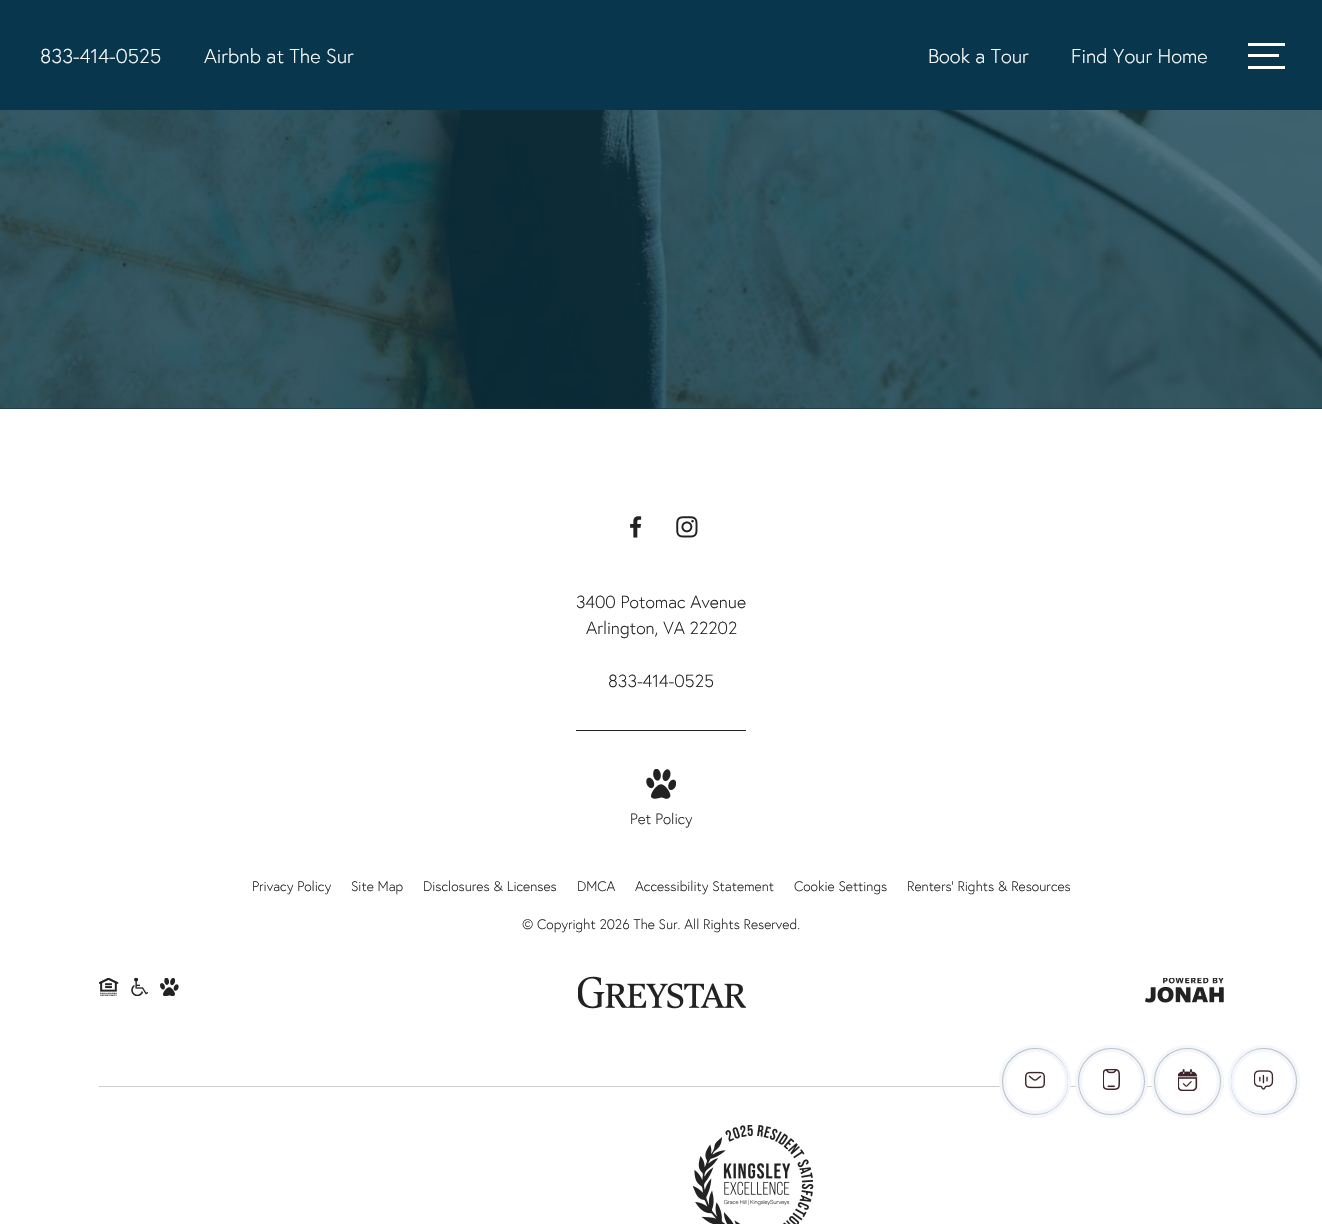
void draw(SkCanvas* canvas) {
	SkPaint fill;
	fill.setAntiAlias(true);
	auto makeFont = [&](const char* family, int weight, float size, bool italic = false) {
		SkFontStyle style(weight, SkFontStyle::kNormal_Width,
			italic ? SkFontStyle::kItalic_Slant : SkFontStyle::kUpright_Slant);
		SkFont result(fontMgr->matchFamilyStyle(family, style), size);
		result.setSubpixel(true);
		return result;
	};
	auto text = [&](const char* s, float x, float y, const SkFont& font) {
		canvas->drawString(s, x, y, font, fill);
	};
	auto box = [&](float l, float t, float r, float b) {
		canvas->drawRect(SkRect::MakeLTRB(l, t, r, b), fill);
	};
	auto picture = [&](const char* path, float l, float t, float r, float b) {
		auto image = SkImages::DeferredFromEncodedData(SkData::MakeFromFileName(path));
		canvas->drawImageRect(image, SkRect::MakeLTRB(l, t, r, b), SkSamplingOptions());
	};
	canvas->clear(0xFFFFFFFF);
	fill.setColor(0xFF08364D);
	box(0, 0, 1322, 110);
	fill.setColor(0xFFFFFFFF);
	box(1248, 43, 1285, 46);
	box(1248, 54, 1279, 57);
	box(1248, 66, 1285, 69);
	fill.setColor(0xFF103040);
	box(0, 408, 1322, 409);
	picture("image0.png", 0, 110, 1322, 409);
	picture("image1.png", 630, 516, 642, 538);
	picture("image2.png", 676, 516, 698, 538);
	fill.setColor(0xFF222222);
	box(576, 730, 746, 731);
	picture("image3.png", 646, 769, 676, 799);
	picture("image4.png", 99, 978, 119, 996);
	picture("image5.png", 131, 978, 148, 996);
	picture("image6.png", 160, 978, 179, 996);
	picture("image7.png", 578, 976, 746, 1009);
	picture("image8.png", 1145, 978, 1224, 1003);
	fill.setColor(0xFFCCCCCC);
	box(99, 1086, 1224, 1087);
	picture("image9.png", 693, 1125, 814, 1224);
	fill.setColor(0xFFBEC4C0);
	canvas->drawRoundRect(SkRect::MakeLTRB(1000.5f, 1046.5f, 1069.5f, 1116.5f), 34.5f, 34.5f, fill);
	fill.setStyle(SkPaint::kStroke_Style);
	fill.setStrokeWidth(3);
	fill.setColor(0xFFF3F6FC);
	canvas->drawRoundRect(SkRect::MakeLTRB(1000.5f, 1046.5f, 1069.5f, 1116.5f), 34.5f, 34.5f, fill);
	fill.setStyle(SkPaint::kFill_Style);
	fill.setColor(0xFFFFFFFF);
	canvas->drawCircle(1035.5f, 1081.5f, 31, fill);
	fill.setStyle(SkPaint::kStroke_Style);
	fill.setColor(0xFFF3F6FC);
	canvas->drawCircle(1035.5f, 1081.5f, 31, fill);
	picture("image10.png", 1025, 1071, 1045, 1089);
	fill.setStyle(SkPaint::kFill_Style);
	fill.setColor(0xFFBEC4C0);
	canvas->drawCircle(1111.5f, 1081.5f, 35, fill);
	fill.setStyle(SkPaint::kStroke_Style);
	fill.setColor(0xFFF3F6FC);
	canvas->drawCircle(1111.5f, 1081.5f, 35, fill);
	fill.setStyle(SkPaint::kFill_Style);
	fill.setColor(0xFFFFFFFF);
	canvas->drawCircle(1111.5f, 1081.5f, 31, fill);
	fill.setStyle(SkPaint::kStroke_Style);
	fill.setColor(0xFFF3F6FC);
	canvas->drawCircle(1111.5f, 1081.5f, 31, fill);
	picture("image11.png", 1103, 1069, 1120, 1090);
	fill.setStyle(SkPaint::kFill_Style);
	fill.setColor(0xFFBEC4C0);
	canvas->drawCircle(1187.5f, 1081.5f, 35, fill);
	fill.setStyle(SkPaint::kStroke_Style);
	fill.setColor(0xFFF3F6FC);
	canvas->drawCircle(1187.5f, 1081.5f, 35, fill);
	fill.setStyle(SkPaint::kFill_Style);
	fill.setColor(0xFFFFFFFF);
	canvas->drawCircle(1187.5f, 1081.5f, 31, fill);
	fill.setStyle(SkPaint::kStroke_Style);
	fill.setColor(0xFFF3F6FC);
	canvas->drawCircle(1187.5f, 1081.5f, 31, fill);
	picture("image12.png", 1178, 1069, 1198, 1091);
	fill.setStyle(SkPaint::kFill_Style);
	fill.setColor(0xFFBEC4C0);
	canvas->drawRoundRect(SkRect::MakeLTRB(1229.5f, 1046.5f, 1298.5f, 1116.5f), 34.5f, 34.5f, fill);
	fill.setStyle(SkPaint::kStroke_Style);
	fill.setColor(0xFFF3F6FC);
	canvas->drawRoundRect(SkRect::MakeLTRB(1229.5f, 1046.5f, 1298.5f, 1116.5f), 34.5f, 34.5f, fill);
	fill.setStyle(SkPaint::kFill_Style);
	fill.setColor(0xFFFFFFFF);
	canvas->drawCircle(1263.5f, 1081.5f, 31, fill);
	fill.setStyle(SkPaint::kStroke_Style);
	fill.setColor(0xFFF3F6FC);
	canvas->drawCircle(1263.5f, 1081.5f, 31, fill);
	picture("image13.png", 1254, 1070, 1274, 1090);
	auto font1 = makeFont("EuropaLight", 300, 20);
	fill.setStyle(SkPaint::kFill_Style);
	fill.setColor(0xFFFFFFFF);
	text("833-414-0525", 40, 63, font1);
	text("Airbnb at The Sur", 204, 63, font1);
	text("Book a Tour", 928, 63, font1);
	text("Find Your Home", 1071, 63, font1);
	auto font2 = makeFont("EuropaLight", 300, 17.5f);
	fill.setColor(0xFF222222);
	text("3400 Potomac Avenue", 576, 608, font2);
	text("Arlington, VA 22202", 586, 634, font2);
	text("833-414-0525", 608, 687, font2);
	auto font3 = makeFont("EuropaLight", 300, 15);
	text("Pet Policy", 630, 824, font3);
	auto font4 = makeFont("EuropaLight", 300, 13.75f);
	text("Privacy Policy", 252, 891, font4);
	text("Site Map", 351, 891, font4);
	text("Disclosures & Licenses", 423, 891, font4);
	text("DMCA", 577, 891, font4);
	text("Accessibility Statement", 635, 891, font4);
	text("Cookie Settings", 794, 891, font4);
	text("Renters' Rights & Resources", 907, 891, font4);
	text("© Copyright 2026 The Sur. All Rights Reserved.", 522, 929, font4);
}
